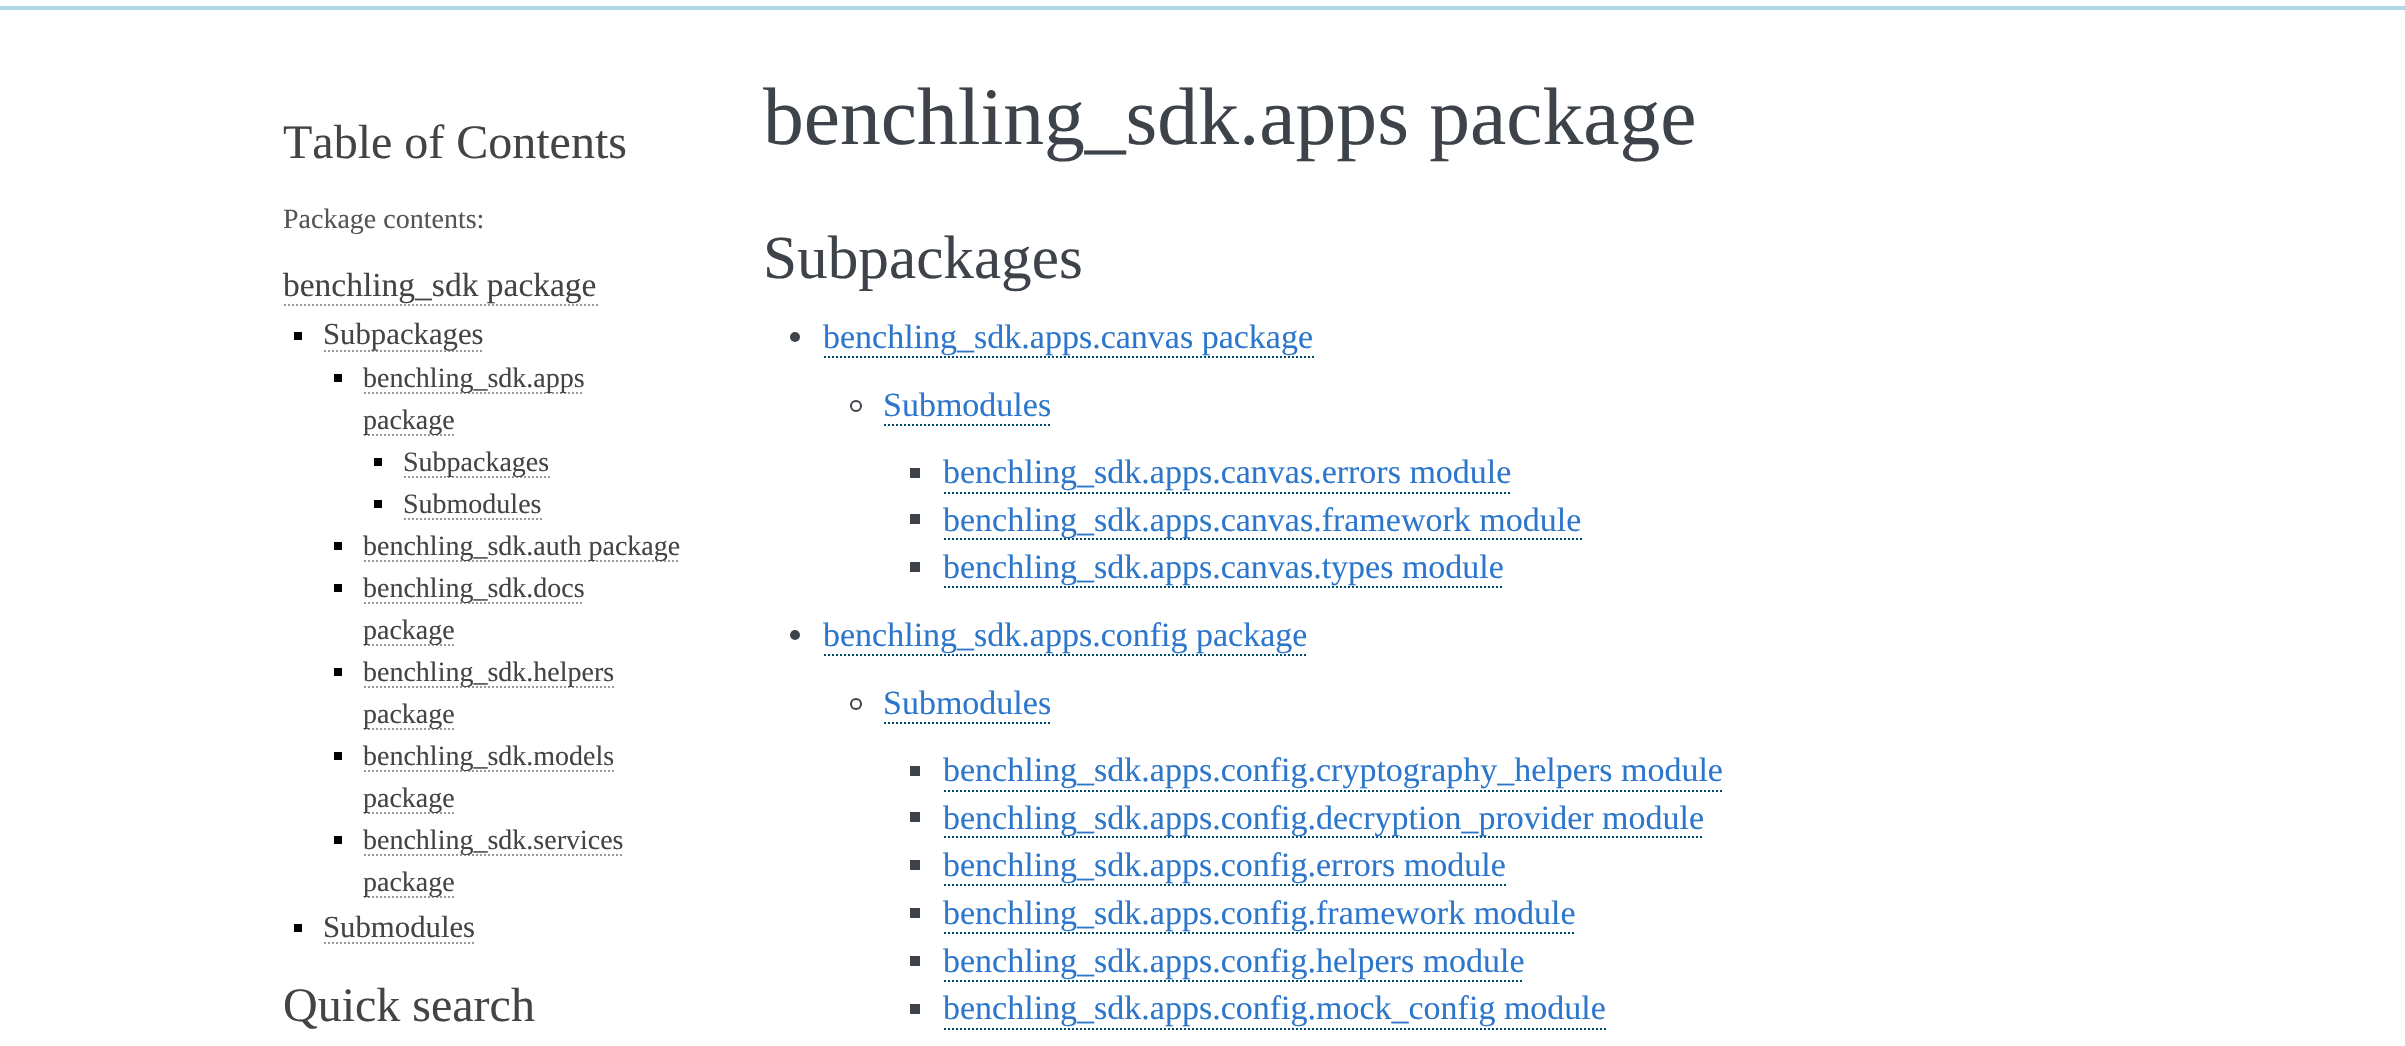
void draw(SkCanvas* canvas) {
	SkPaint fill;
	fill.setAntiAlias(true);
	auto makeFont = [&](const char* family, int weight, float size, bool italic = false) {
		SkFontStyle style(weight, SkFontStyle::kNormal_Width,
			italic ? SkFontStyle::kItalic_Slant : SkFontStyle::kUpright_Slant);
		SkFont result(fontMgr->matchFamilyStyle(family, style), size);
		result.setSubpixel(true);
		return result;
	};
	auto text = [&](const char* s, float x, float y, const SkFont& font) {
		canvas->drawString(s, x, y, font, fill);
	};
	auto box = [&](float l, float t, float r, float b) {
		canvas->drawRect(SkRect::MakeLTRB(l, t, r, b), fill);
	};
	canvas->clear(0xFFFFFFFF);
	fill.setColor(0xFFADD8E6);
	box(0, 6, 2405, 10);
	fill.setStyle(SkPaint::kStroke_Style);
	fill.setStrokeWidth(2);
	fill.setColor(0xFF999999);
	fill.setPathEffect(SkDashPathEffect::Make({{2, 2}}, 0));
	canvas->drawPath(SkPathBuilder().moveTo(284, 305).lineTo(598, 305).detach(), fill);
	fill.setPathEffect(nullptr);
	fill.setStyle(SkPaint::kFill_Style);
	fill.setColor(0xFF000000);
	box(294, 332, 302, 340);
	fill.setStyle(SkPaint::kStroke_Style);
	fill.setColor(0xFF999999);
	fill.setPathEffect(SkDashPathEffect::Make({{2, 2}}, 0));
	canvas->drawPath(SkPathBuilder().moveTo(324, 351).lineTo(484, 351).detach(), fill);
	fill.setPathEffect(nullptr);
	fill.setStyle(SkPaint::kFill_Style);
	fill.setColor(0xFF000000);
	box(334, 374, 342, 382);
	fill.setStyle(SkPaint::kStroke_Style);
	fill.setColor(0xFF999999);
	fill.setPathEffect(SkDashPathEffect::Make({{2, 2}}, 0));
	canvas->drawPath(SkPathBuilder().moveTo(364, 393).lineTo(584, 393).detach(), fill);
	fill.setPathEffect(nullptr);
	fill.setPathEffect(SkDashPathEffect::Make({{2, 2}}, 0));
	canvas->drawPath(SkPathBuilder().moveTo(364, 435).lineTo(454, 435).detach(), fill);
	fill.setPathEffect(nullptr);
	fill.setStyle(SkPaint::kFill_Style);
	fill.setColor(0xFF000000);
	box(374, 458, 382, 466);
	fill.setStyle(SkPaint::kStroke_Style);
	fill.setColor(0xFF999999);
	fill.setPathEffect(SkDashPathEffect::Make({{2, 2}}, 0));
	canvas->drawPath(SkPathBuilder().moveTo(404, 477).lineTo(550, 477).detach(), fill);
	fill.setPathEffect(nullptr);
	fill.setStyle(SkPaint::kFill_Style);
	fill.setColor(0xFF000000);
	box(374, 500, 382, 508);
	fill.setStyle(SkPaint::kStroke_Style);
	fill.setColor(0xFF999999);
	fill.setPathEffect(SkDashPathEffect::Make({{2, 2}}, 0));
	canvas->drawPath(SkPathBuilder().moveTo(404, 519).lineTo(542, 519).detach(), fill);
	fill.setPathEffect(nullptr);
	fill.setStyle(SkPaint::kFill_Style);
	fill.setColor(0xFF000000);
	box(334, 542, 342, 550);
	fill.setStyle(SkPaint::kStroke_Style);
	fill.setColor(0xFF999999);
	fill.setPathEffect(SkDashPathEffect::Make({{2, 2}}, 0));
	canvas->drawPath(SkPathBuilder().moveTo(364, 561).lineTo(680, 561).detach(), fill);
	fill.setPathEffect(nullptr);
	fill.setStyle(SkPaint::kFill_Style);
	fill.setColor(0xFF000000);
	box(334, 584, 342, 592);
	fill.setStyle(SkPaint::kStroke_Style);
	fill.setColor(0xFF999999);
	fill.setPathEffect(SkDashPathEffect::Make({{2, 2}}, 0));
	canvas->drawPath(SkPathBuilder().moveTo(364, 603).lineTo(584, 603).detach(), fill);
	fill.setPathEffect(nullptr);
	fill.setPathEffect(SkDashPathEffect::Make({{2, 2}}, 0));
	canvas->drawPath(SkPathBuilder().moveTo(364, 645).lineTo(454, 645).detach(), fill);
	fill.setPathEffect(nullptr);
	fill.setStyle(SkPaint::kFill_Style);
	fill.setColor(0xFF000000);
	box(334, 668, 342, 676);
	fill.setStyle(SkPaint::kStroke_Style);
	fill.setColor(0xFF999999);
	fill.setPathEffect(SkDashPathEffect::Make({{2, 2}}, 0));
	canvas->drawPath(SkPathBuilder().moveTo(364, 687).lineTo(614, 687).detach(), fill);
	fill.setPathEffect(nullptr);
	fill.setPathEffect(SkDashPathEffect::Make({{2, 2}}, 0));
	canvas->drawPath(SkPathBuilder().moveTo(364, 729).lineTo(454, 729).detach(), fill);
	fill.setPathEffect(nullptr);
	fill.setStyle(SkPaint::kFill_Style);
	fill.setColor(0xFF000000);
	box(334, 752, 342, 760);
	fill.setStyle(SkPaint::kStroke_Style);
	fill.setColor(0xFF999999);
	fill.setPathEffect(SkDashPathEffect::Make({{2, 2}}, 0));
	canvas->drawPath(SkPathBuilder().moveTo(364, 771).lineTo(614, 771).detach(), fill);
	fill.setPathEffect(nullptr);
	fill.setPathEffect(SkDashPathEffect::Make({{2, 2}}, 0));
	canvas->drawPath(SkPathBuilder().moveTo(364, 813).lineTo(454, 813).detach(), fill);
	fill.setPathEffect(nullptr);
	fill.setStyle(SkPaint::kFill_Style);
	fill.setColor(0xFF000000);
	box(334, 836, 342, 844);
	fill.setStyle(SkPaint::kStroke_Style);
	fill.setColor(0xFF999999);
	fill.setPathEffect(SkDashPathEffect::Make({{2, 2}}, 0));
	canvas->drawPath(SkPathBuilder().moveTo(364, 855).lineTo(624, 855).detach(), fill);
	fill.setPathEffect(nullptr);
	fill.setPathEffect(SkDashPathEffect::Make({{2, 2}}, 0));
	canvas->drawPath(SkPathBuilder().moveTo(364, 897).lineTo(454, 897).detach(), fill);
	fill.setPathEffect(nullptr);
	fill.setStyle(SkPaint::kFill_Style);
	fill.setColor(0xFF000000);
	box(294, 924, 302, 932);
	fill.setStyle(SkPaint::kStroke_Style);
	fill.setColor(0xFF999999);
	fill.setPathEffect(SkDashPathEffect::Make({{2, 2}}, 0));
	canvas->drawPath(SkPathBuilder().moveTo(324, 943).lineTo(476, 943).detach(), fill);
	fill.setPathEffect(nullptr);
	fill.setStyle(SkPaint::kFill_Style);
	fill.setColor(0xFF3E4349);
	canvas->drawCircle(795, 337, 5, fill);
	fill.setStyle(SkPaint::kStroke_Style);
	fill.setColor(0xFF004B6B);
	fill.setPathEffect(SkDashPathEffect::Make({{2, 2}}, 0));
	canvas->drawPath(SkPathBuilder().moveTo(824, 357).lineTo(1314, 357).detach(), fill);
	fill.setPathEffect(nullptr);
	fill.setColor(0xFF3E4349);
	canvas->drawCircle(856, 406, 5, fill);
	fill.setColor(0xFF004B6B);
	fill.setPathEffect(SkDashPathEffect::Make({{2, 2}}, 0));
	canvas->drawPath(SkPathBuilder().moveTo(884, 425).lineTo(1052, 425).detach(), fill);
	fill.setPathEffect(nullptr);
	fill.setStyle(SkPaint::kFill_Style);
	fill.setColor(0xFF3E4349);
	box(910, 468, 920, 478);
	fill.setStyle(SkPaint::kStroke_Style);
	fill.setColor(0xFF004B6B);
	fill.setPathEffect(SkDashPathEffect::Make({{2, 2}}, 0));
	canvas->drawPath(SkPathBuilder().moveTo(944, 493).lineTo(1512, 493).detach(), fill);
	fill.setPathEffect(nullptr);
	fill.setStyle(SkPaint::kFill_Style);
	fill.setColor(0xFF3E4349);
	box(910, 514, 920, 524);
	fill.setStyle(SkPaint::kStroke_Style);
	fill.setColor(0xFF004B6B);
	fill.setPathEffect(SkDashPathEffect::Make({{2, 2}}, 0));
	canvas->drawPath(SkPathBuilder().moveTo(944, 539).lineTo(1582, 539).detach(), fill);
	fill.setPathEffect(nullptr);
	fill.setStyle(SkPaint::kFill_Style);
	fill.setColor(0xFF3E4349);
	box(910, 562, 920, 572);
	fill.setStyle(SkPaint::kStroke_Style);
	fill.setColor(0xFF004B6B);
	fill.setPathEffect(SkDashPathEffect::Make({{2, 2}}, 0));
	canvas->drawPath(SkPathBuilder().moveTo(944, 587).lineTo(1504, 587).detach(), fill);
	fill.setPathEffect(nullptr);
	fill.setStyle(SkPaint::kFill_Style);
	fill.setColor(0xFF3E4349);
	canvas->drawCircle(795, 635, 5, fill);
	fill.setStyle(SkPaint::kStroke_Style);
	fill.setColor(0xFF004B6B);
	fill.setPathEffect(SkDashPathEffect::Make({{2, 2}}, 0));
	canvas->drawPath(SkPathBuilder().moveTo(824, 655).lineTo(1308, 655).detach(), fill);
	fill.setPathEffect(nullptr);
	fill.setColor(0xFF3E4349);
	canvas->drawCircle(856, 704, 5, fill);
	fill.setColor(0xFF004B6B);
	fill.setPathEffect(SkDashPathEffect::Make({{2, 2}}, 0));
	canvas->drawPath(SkPathBuilder().moveTo(884, 723).lineTo(1052, 723).detach(), fill);
	fill.setPathEffect(nullptr);
	fill.setStyle(SkPaint::kFill_Style);
	fill.setColor(0xFF3E4349);
	box(910, 766, 920, 776);
	fill.setStyle(SkPaint::kStroke_Style);
	fill.setColor(0xFF004B6B);
	fill.setPathEffect(SkDashPathEffect::Make({{2, 2}}, 0));
	canvas->drawPath(SkPathBuilder().moveTo(944, 791).lineTo(1722, 791).detach(), fill);
	fill.setPathEffect(nullptr);
	fill.setStyle(SkPaint::kFill_Style);
	fill.setColor(0xFF3E4349);
	box(910, 812, 920, 822);
	fill.setStyle(SkPaint::kStroke_Style);
	fill.setColor(0xFF004B6B);
	fill.setPathEffect(SkDashPathEffect::Make({{2, 2}}, 0));
	canvas->drawPath(SkPathBuilder().moveTo(944, 837).lineTo(1704, 837).detach(), fill);
	fill.setPathEffect(nullptr);
	fill.setStyle(SkPaint::kFill_Style);
	fill.setColor(0xFF3E4349);
	box(910, 860, 920, 870);
	fill.setStyle(SkPaint::kStroke_Style);
	fill.setColor(0xFF004B6B);
	fill.setPathEffect(SkDashPathEffect::Make({{2, 2}}, 0));
	canvas->drawPath(SkPathBuilder().moveTo(944, 885).lineTo(1506, 885).detach(), fill);
	fill.setPathEffect(nullptr);
	fill.setStyle(SkPaint::kFill_Style);
	fill.setColor(0xFF3E4349);
	box(910, 908, 920, 918);
	fill.setStyle(SkPaint::kStroke_Style);
	fill.setColor(0xFF004B6B);
	fill.setPathEffect(SkDashPathEffect::Make({{2, 2}}, 0));
	canvas->drawPath(SkPathBuilder().moveTo(944, 933).lineTo(1576, 933).detach(), fill);
	fill.setPathEffect(nullptr);
	fill.setStyle(SkPaint::kFill_Style);
	fill.setColor(0xFF3E4349);
	box(910, 956, 920, 966);
	fill.setStyle(SkPaint::kStroke_Style);
	fill.setColor(0xFF004B6B);
	fill.setPathEffect(SkDashPathEffect::Make({{2, 2}}, 0));
	canvas->drawPath(SkPathBuilder().moveTo(944, 981).lineTo(1524, 981).detach(), fill);
	fill.setPathEffect(nullptr);
	fill.setStyle(SkPaint::kFill_Style);
	fill.setColor(0xFF3E4349);
	box(910, 1004, 920, 1014);
	fill.setStyle(SkPaint::kStroke_Style);
	fill.setColor(0xFF004B6B);
	fill.setPathEffect(SkDashPathEffect::Make({{2, 2}}, 0));
	canvas->drawPath(SkPathBuilder().moveTo(944, 1029).lineTo(1606, 1029).detach(), fill);
	fill.setPathEffect(nullptr);
	auto font1 = makeFont("Liberation Serif", 400, 48);
	fill.setStyle(SkPaint::kFill_Style);
	fill.setColor(0xFF444444);
	text("Table of Contents", 283, 158, font1);
	auto font2 = makeFont("Liberation Serif", 400, 28);
	fill.setColor(0xFF555555);
	text("Package contents:", 283, 228, font2);
	auto font3 = makeFont("Liberation Serif", 400, 33.5f);
	fill.setColor(0xFF444444);
	text("benchling_sdk package", 283, 296, font3);
	auto font4 = makeFont("Liberation Serif", 400, 30.75f);
	text("Subpackages", 323, 344, font4);
	text("benchling_sdk.apps", 363, 387, font2);
	text("package", 363, 429, font2);
	text("Subpackages", 403, 471, font2);
	text("Submodules", 403, 513, font2);
	text("benchling_sdk.auth package", 363, 555, font2);
	text("benchling_sdk.docs", 363, 597, font2);
	text("package", 363, 639, font2);
	text("benchling_sdk.helpers", 363, 681, font2);
	text("package", 363, 723, font2);
	text("benchling_sdk.models", 363, 765, font2);
	text("package", 363, 807, font2);
	text("benchling_sdk.services", 363, 849, font2);
	text("package", 363, 891, font2);
	text("Submodules", 323, 937, font4);
	text("Quick search", 283, 1021, font1);
	auto font5 = makeFont("Liberation Serif", 400, 81.6f);
	fill.setColor(0xFF3E4349);
	text("benchling_sdk.apps package", 763, 144, font5);
	auto font6 = makeFont("Liberation Serif", 400, 61.25f);
	text("Subpackages", 763, 278, font6);
	auto font7 = makeFont("Liberation Serif", 400, 34);
	fill.setColor(0xFF2C76CC);
	text("benchling_sdk.apps.canvas package", 823, 348, font7);
	text("Submodules", 883, 416, font7);
	text("benchling_sdk.apps.canvas.errors module", 943, 483, font7);
	text("benchling_sdk.apps.canvas.framework module", 943, 531, font7);
	text("benchling_sdk.apps.canvas.types module", 943, 578, font7);
	text("benchling_sdk.apps.config package", 823, 646, font7);
	text("Submodules", 883, 714, font7);
	text("benchling_sdk.apps.config.cryptography_helpers module", 943, 781, font7);
	text("benchling_sdk.apps.config.decryption_provider module", 943, 829, font7);
	text("benchling_sdk.apps.config.errors module", 943, 876, font7);
	text("benchling_sdk.apps.config.framework module", 943, 924, font7);
	text("benchling_sdk.apps.config.helpers module", 943, 972, font7);
	text("benchling_sdk.apps.config.mock_config module", 943, 1019, font7);
}
